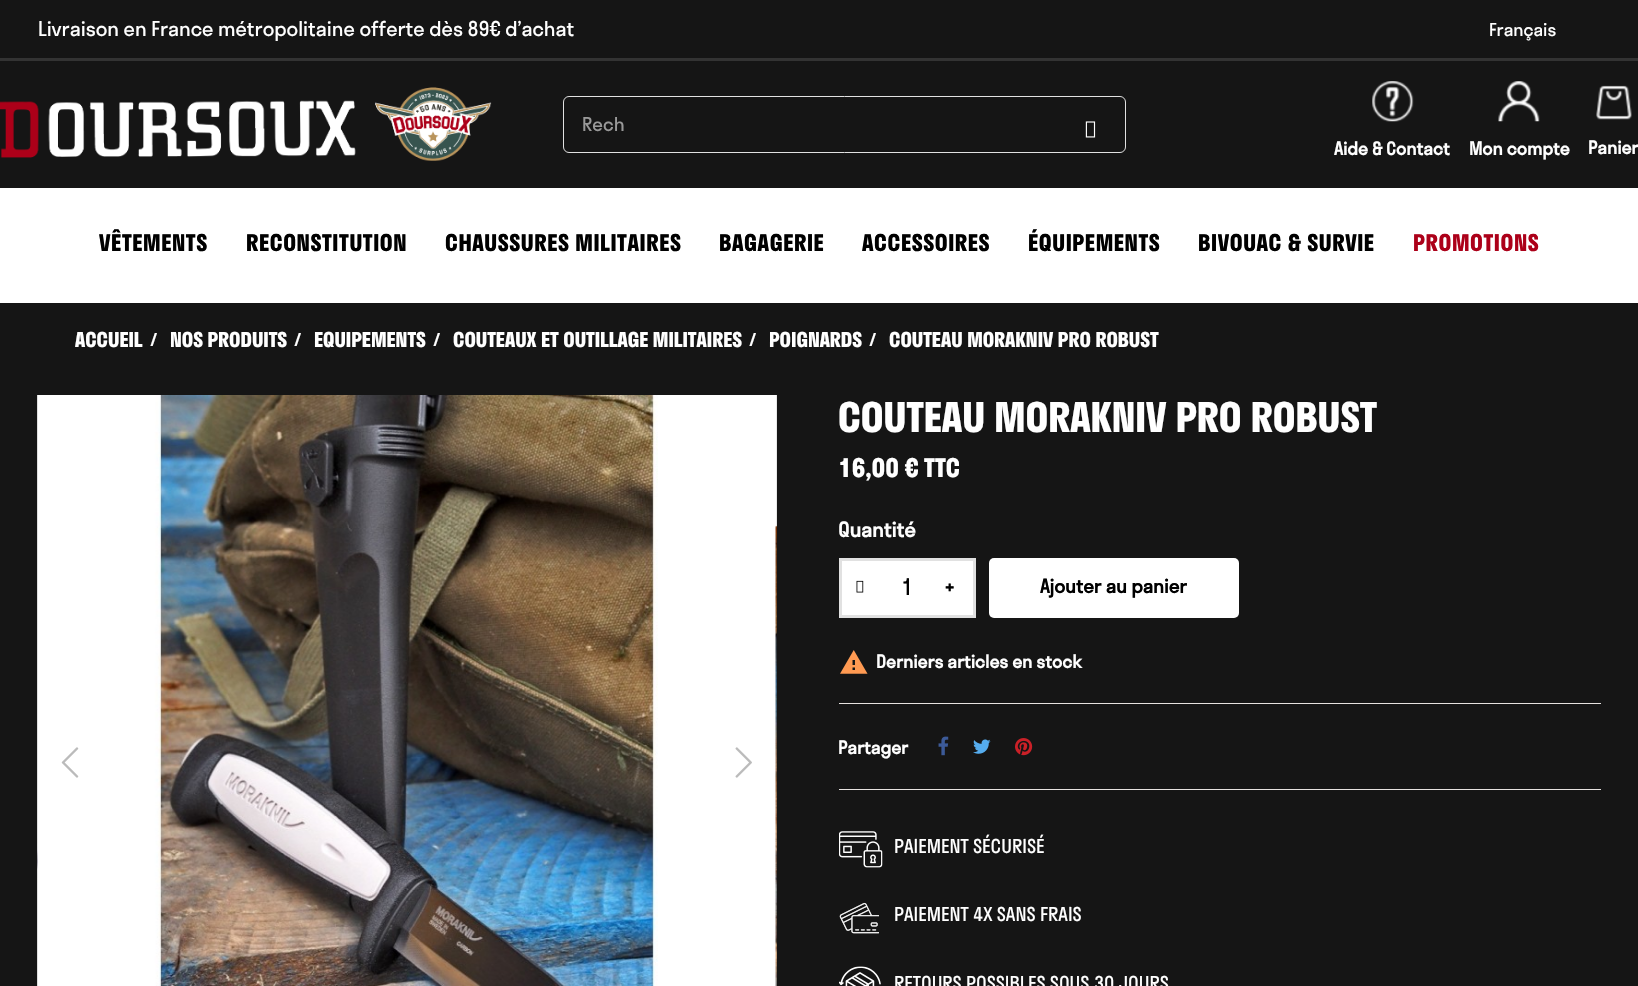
void draw(SkCanvas* canvas) {
	SkPaint fill;
	fill.setAntiAlias(true);
	auto makeFont = [&](const char* family, int weight, float size, bool italic = false) {
		SkFontStyle style(weight, SkFontStyle::kNormal_Width,
			italic ? SkFontStyle::kItalic_Slant : SkFontStyle::kUpright_Slant);
		SkFont result(fontMgr->matchFamilyStyle(family, style), size);
		result.setSubpixel(true);
		return result;
	};
	auto text = [&](const char* s, float x, float y, const SkFont& font) {
		canvas->drawString(s, x, y, font, fill);
	};
	auto spacedText = [&](const char* s, float x, float y, const SkFont& font, const SkPaint& ink, float letter, float word) {
		std::vector<SkGlyphID> glyphs(font.countText(s, strlen(s), SkTextEncoding::kUTF8));
		std::vector<float> xs(glyphs.size());
		font.textToGlyphs(s, strlen(s), SkTextEncoding::kUTF8, glyphs);
		font.getXPos(glyphs, xs, x);
		float extra = 0;
		for (size_t i = 0; i < glyphs.size(); i++) {
			xs[i] += extra;
			extra += letter + word * (glyphs[i] == font.unicharToGlyph(' '));
		}
		canvas->drawTextBlob(SkTextBlob::MakeFromPosHGlyphs(glyphs, xs, y, font), 0, 0, ink);
	};
	auto box = [&](float l, float t, float r, float b) {
		canvas->drawRect(SkRect::MakeLTRB(l, t, r, b), fill);
	};
	auto roundBox = [&](float l, float t, float r, float b, float radius) {
		canvas->drawRoundRect(SkRect::MakeLTRB(l, t, r, b), radius, radius, fill);
	};
	auto picture = [&](const char* path, float l, float t, float r, float b) {
		auto image = SkImages::DeferredFromEncodedData(SkData::MakeFromFileName(path));
		canvas->drawImageRect(image, SkRect::MakeLTRB(l, t, r, b), SkSamplingOptions());
	};
	canvas->clear(0xFF151515);
	fill.setColor(0xFFFFFFFF);
	box(0, 188, 1638, 303);
	fill.setColor(0xFF333333);
	box(0, 58, 1638, 61);
	picture("image0.png", 0, 87, 492, 161);
	fill.setStyle(SkPaint::kStroke_Style);
	fill.setStrokeWidth(1);
	fill.setColor(0xFFE1E1E1);
	canvas->drawRoundRect(SkRect::MakeLTRB(563.5f, 96.5f, 1125.5f, 152.5f), 5.5f, 5.5f, fill);
	picture("image1.png", 1085, 121, 1096, 138);
	picture("image2.png", 1372, 81, 1414, 122);
	picture("image3.png", 1498, 81, 1540, 122);
	picture("image4.png", 1596, 85, 1632, 120);
	fill.setStyle(SkPaint::kFill_Style);
	fill.setColor(0xFFFFFFFF);
	box(38, 395, 776, 986);
	picture("image5.png", 37, 395, 39, 986);
	picture("image6.png", 37, 395, 658, 986);
	picture("image7.png", 775, 395, 777, 986);
	picture("image8.png", 61, 747, 79, 778);
	picture("image9.png", 735, 747, 752, 778);
	fill.setColor(0xFFE6E2E0);
	box(839, 703, 1601, 704);
	fill.setColor(0xFFFFFFFF);
	canvas->drawRect(SkRect::MakeLTRB(840.5f, 559.5f, 974.5f, 616.5f), fill);
	fill.setStyle(SkPaint::kStroke_Style);
	fill.setStrokeWidth(3);
	fill.setColor(0xFFE1E1E1);
	canvas->drawRect(SkRect::MakeLTRB(840.5f, 559.5f, 974.5f, 616.5f), fill);
	picture("image10.png", 856, 580, 864, 593);
	fill.setStyle(SkPaint::kFill_Style);
	fill.setColor(0xFFFFFFFF);
	roundBox(989, 558, 1239, 618, 5);
	picture("image11.png", 840, 650, 868, 674);
	fill.setColor(0xFFE6E2E0);
	box(839, 789, 1601, 790);
	picture("image12.png", 938, 736, 949, 756);
	picture("image13.png", 973, 739, 991, 754);
	picture("image14.png", 1015, 738, 1033, 756);
	picture("image15.png", 839, 831, 883, 868);
	picture("image16.png", 839, 902, 879, 934);
	picture("image17.png", 839, 966, 881, 986);
	auto font1 = makeFont("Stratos", 400, 20);
	fill.setColor(0xFFFFFFFF);
	text("Livraison en France métropolitaine offerte dès 89€ d’achat", 38, 36, font1);
	auto font2 = makeFont("Stratos", 400, 17.5f);
	text("Français", 1489, 36, font2);
	auto font3 = makeFont("Stratos", 400, 18.75f);
	fill.setColor(0xFF999999);
	text("Rech", 582, 131, font3);
	auto font4 = makeFont("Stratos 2", 700, 17.5f);
	fill.setColor(0xFFFFFFFF);
	text("Aide & Contact", 1334, 155, font4);
	text("Mon compte", 1469, 155, font4);
	text("Panier", 1588, 154, font4);
	auto font5 = makeFont("Stratos", 700, 22.5f);
	fill.setColor(0xFF000000);
	spacedText("VÊTEMENTS", 99, 251, font5, fill, 0.6f, 0);
	spacedText("RECONSTITUTION", 246, 251, font5, fill, 0.6f, 0);
	spacedText("CHAUSSURES MILITAIRES", 445, 251, font5, fill, 0.6f, 0);
	spacedText("BAGAGERIE", 719, 251, font5, fill, 0.6f, 0);
	spacedText("ACCESSOIRES", 862, 251, font5, fill, 0.6f, 0);
	spacedText("ÉQUIPEMENTS", 1028, 251, font5, fill, 0.6f, 0);
	spacedText("BIVOUAC & SURVIE", 1198, 251, font5, fill, 0.6f, 0);
	fill.setColor(0xFFAC0019);
	spacedText("PROMOTIONS", 1413, 251, font5, fill, 0.6f, 0);
	auto font6 = makeFont("Stratos", 700, 20);
	fill.setColor(0xFFFFFFFF);
	text("ACCUEIL", 75, 347, font6);
	auto font7 = makeFont("Stratos", 700, 17.5f);
	text("/", 150, 346, font7);
	text("NOS PRODUITS", 170, 347, font6);
	text("/", 294, 346, font7);
	text("EQUIPEMENTS", 314, 347, font6);
	text("/", 433, 346, font7);
	text("COUTEAUX ET OUTILLAGE MILITAIRES", 453, 347, font6);
	text("/", 749, 346, font7);
	text("POIGNARDS", 769, 347, font6);
	text("/", 869, 346, font7);
	text("COUTEAU MORAKNIV PRO ROBUST", 889, 347, font6);
	auto font8 = makeFont("Stratos", 700, 40);
	text("COUTEAU MORAKNIV PRO ROBUST", 838, 432, font8);
	auto font9 = makeFont("Stratos", 700, 25);
	text("16,00 € TTC", 838, 477, font9);
	auto font10 = makeFont("Stratos 2", 700, 20);
	text("Quantité", 838, 537, font10);
	auto font11 = makeFont("Stratos", 400, 22.5f);
	fill.setColor(0xFF000000);
	text("1", 901, 595, font11);
	auto font12 = makeFont("Noto Sans", 900, 16);
	text("+", 945, 593, font12);
	auto font13 = makeFont("Stratos 2", 700, 18.75f);
	text("Ajouter au panier", 1040, 593, font13);
	fill.setColor(0xFFFFFFFF);
	text("Derniers articles en stock", 876, 668, font4);
	text("Partager", 838, 754, font4);
	text("PAIEMENT SÉCURISÉ", 894, 853, font3);
	text("PAIEMENT 4X SANS FRAIS", 894, 921, font3);
	text("RETOURS POSSIBLES SOUS 30 JOURS", 894, 990, font3);
}
